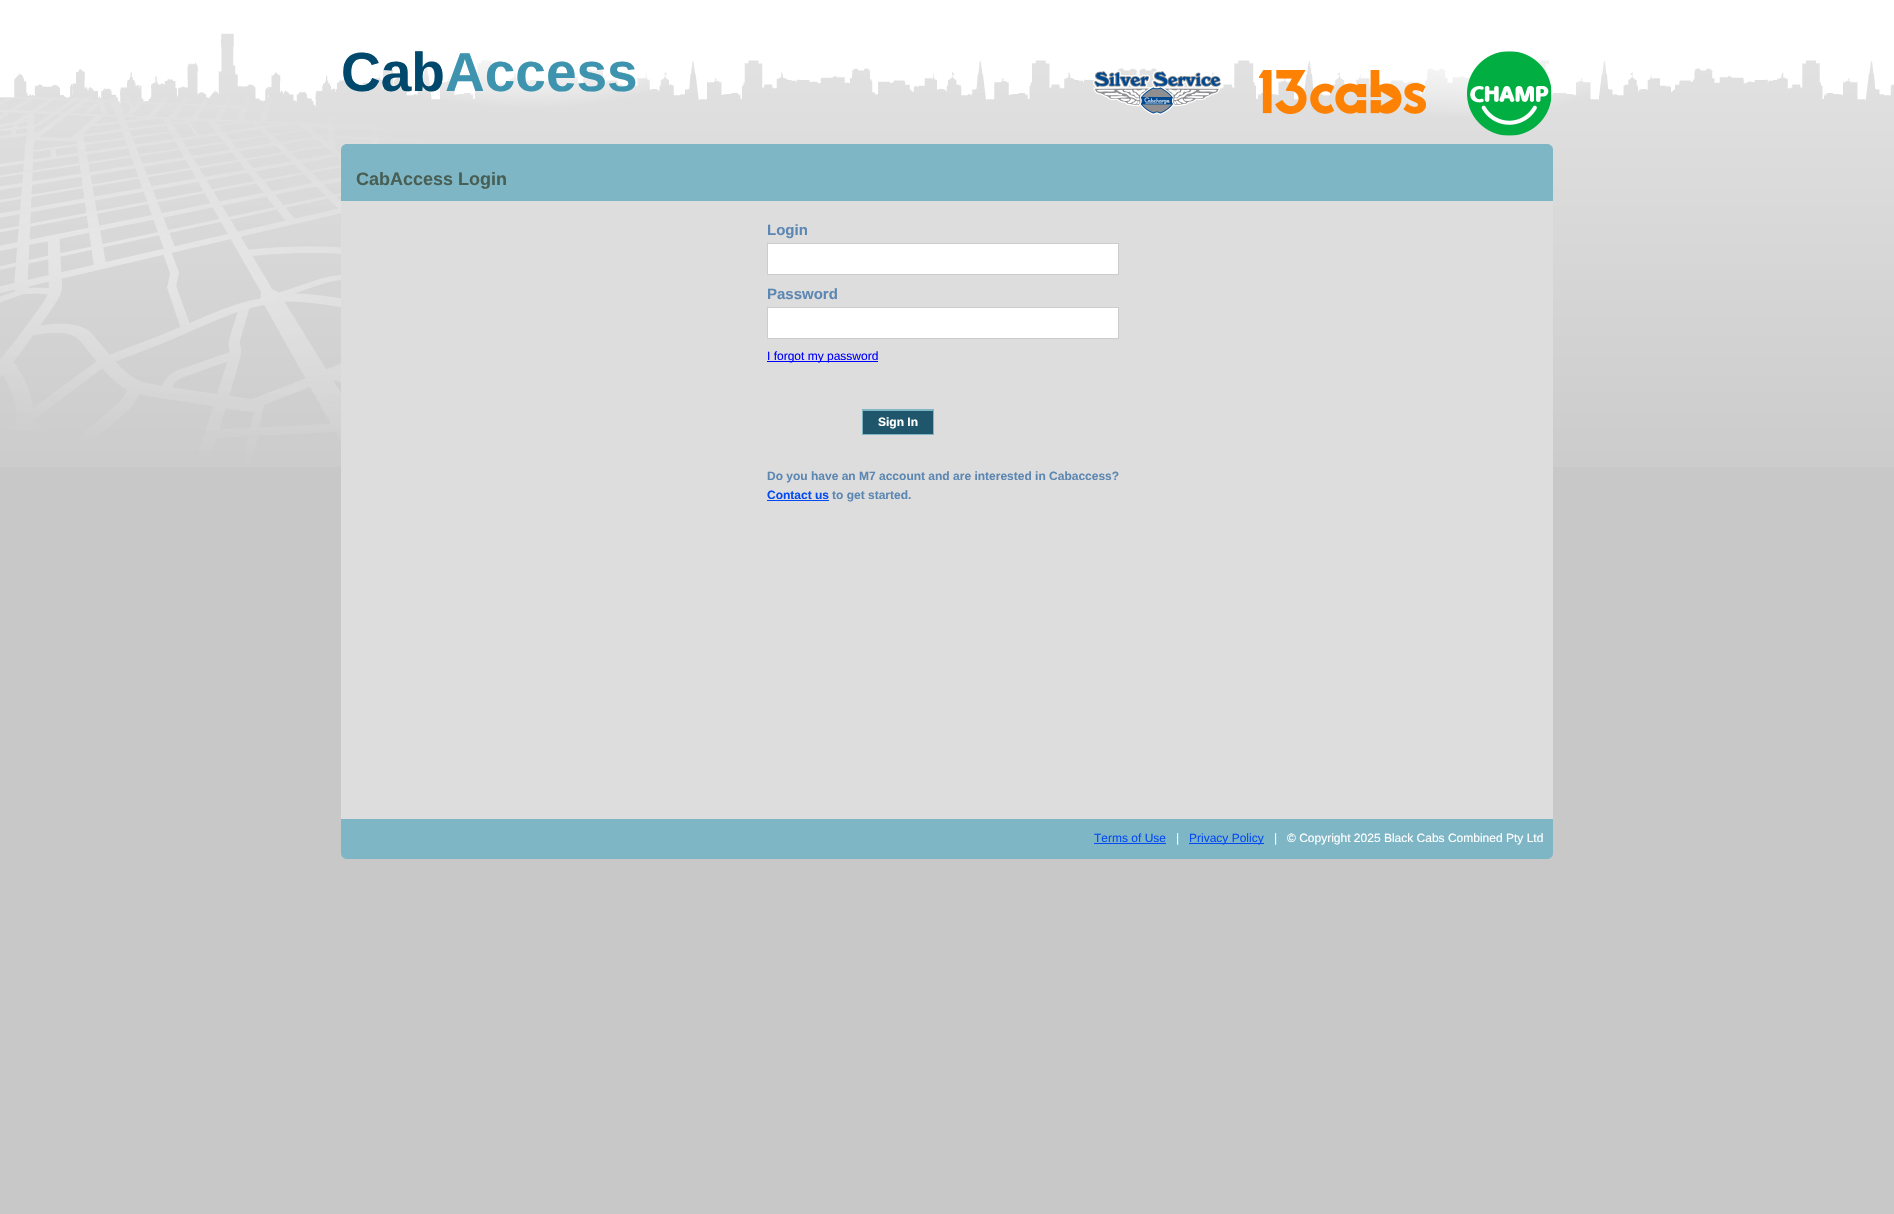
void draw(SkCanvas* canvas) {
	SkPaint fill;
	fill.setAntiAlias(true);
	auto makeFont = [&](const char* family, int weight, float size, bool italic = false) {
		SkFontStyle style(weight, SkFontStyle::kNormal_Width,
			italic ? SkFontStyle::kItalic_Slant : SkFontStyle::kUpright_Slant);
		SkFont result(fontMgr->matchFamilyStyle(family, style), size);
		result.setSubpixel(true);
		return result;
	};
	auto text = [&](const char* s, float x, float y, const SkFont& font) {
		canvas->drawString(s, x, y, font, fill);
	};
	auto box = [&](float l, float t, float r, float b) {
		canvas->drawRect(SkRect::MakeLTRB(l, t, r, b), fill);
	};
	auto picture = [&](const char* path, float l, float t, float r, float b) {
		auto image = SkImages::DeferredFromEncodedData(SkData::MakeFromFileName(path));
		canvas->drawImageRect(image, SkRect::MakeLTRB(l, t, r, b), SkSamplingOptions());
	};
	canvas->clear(0xFFC8C8C8);
	picture("image0.png", 0, 0, 1894, 467);
	picture("image1.png", 1093, 51, 1552, 136);
	fill.setColor(0xFFDDDDDD);
	box(341, 156, 1553, 819);
	fill.setColor(0xFF7FB6C6);
	canvas->drawPath(SkPathBuilder().moveTo(347, 144).lineTo(1547, 144).cubicTo(1550.5f, 144, 1553, 146.5f, 1553, 150).lineTo(1553, 201).lineTo(341, 201).lineTo(341, 150).cubicTo(341, 146.5f, 343.5f, 144, 347, 144).close().detach(), fill);
	fill.setColor(0xFFFFFFFF);
	canvas->drawRect(SkRect::MakeLTRB(767.5f, 243.5f, 1118.5f, 274.5f), fill);
	fill.setStyle(SkPaint::kStroke_Style);
	fill.setStrokeWidth(1);
	fill.setColor(0xFFCCCCCC);
	canvas->drawRect(SkRect::MakeLTRB(767.5f, 243.5f, 1118.5f, 274.5f), fill);
	fill.setStyle(SkPaint::kFill_Style);
	fill.setColor(0xFFFFFFFF);
	canvas->drawRect(SkRect::MakeLTRB(767.5f, 307.5f, 1118.5f, 338.5f), fill);
	fill.setStyle(SkPaint::kStroke_Style);
	fill.setColor(0xFFCCCCCC);
	canvas->drawRect(SkRect::MakeLTRB(767.5f, 307.5f, 1118.5f, 338.5f), fill);
	fill.setStyle(SkPaint::kFill_Style);
	fill.setColor(0xFF0000FF);
	box(767, 361, 878, 362);
	fill.setColor(0xFF20566B);
	box(863, 411, 933, 434);
	fill.setColor(0xFF7FB6C6);
	box(863, 410, 933, 411);
	fill.setStyle(SkPaint::kStroke_Style);
	canvas->drawRect(SkRect::MakeLTRB(862.5f, 409.5f, 933.5f, 434.5f), fill);
	fill.setStyle(SkPaint::kFill_Style);
	fill.setColor(0xFF034AF3);
	box(767, 500, 829, 501);
	fill.setColor(0xFF7FB6C6);
	canvas->drawPath(SkPathBuilder().moveTo(341, 819).lineTo(1553, 819).lineTo(1553, 853).cubicTo(1553, 856.5f, 1550.5f, 859, 1547, 859).lineTo(347, 859).cubicTo(343.5f, 859, 341, 856.5f, 341, 853).close().detach(), fill);
	fill.setColor(0xFF034AF3);
	box(1094, 843, 1166, 844);
	box(1189, 843, 1264, 844);
	auto font1 = makeFont("Liberation Sans", 700, 55);
	fill.setColor(0xFF00496C);
	text("Cab", 341, 91, font1);
	fill.setColor(0xFF3E94AF);
	text("Access", 445, 91, font1);
	auto font2 = makeFont("Liberation Sans", 700, 18);
	fill.setColor(0xFF475F55);
	text("CabAccess Login", 356, 185, font2);
	auto font3 = makeFont("Liberation Sans", 700, 15);
	fill.setColor(0xFF5C87B2);
	text("Login", 767, 235, font3);
	text("Password", 767, 299, font3);
	auto font4 = makeFont("Liberation Sans", 400, 12);
	fill.setColor(0xFF0000FF);
	text("I forgot my password", 767, 360, font4);
	auto font5 = makeFont("Liberation Sans", 700, 12);
	fill.setColor(0xFFFFFFFF);
	text("Sign In", 878, 426, font5);
	fill.setColor(0xFF5C87B2);
	text("Do you have an M7 account and are interested in Cabaccess?", 767, 480, font5);
	fill.setColor(0xFF034AF3);
	text("Contact us", 767, 499, font5);
	fill.setColor(0xFF5C87B2);
	text("to get started.", 832, 499, font5);
	fill.setColor(0xFF034AF3);
	text("Terms of Use", 1094, 842, font4);
	fill.setColor(0xFFFFFFFF);
	text("|", 1176, 842, font4);
	fill.setColor(0xFF034AF3);
	text("Privacy Policy", 1189, 842, font4);
	fill.setColor(0xFFFFFFFF);
	text("|", 1274, 842, font4);
	text("© Copyright 2025 Black Cabs Combined Pty Ltd", 1287, 842, font4);
}
